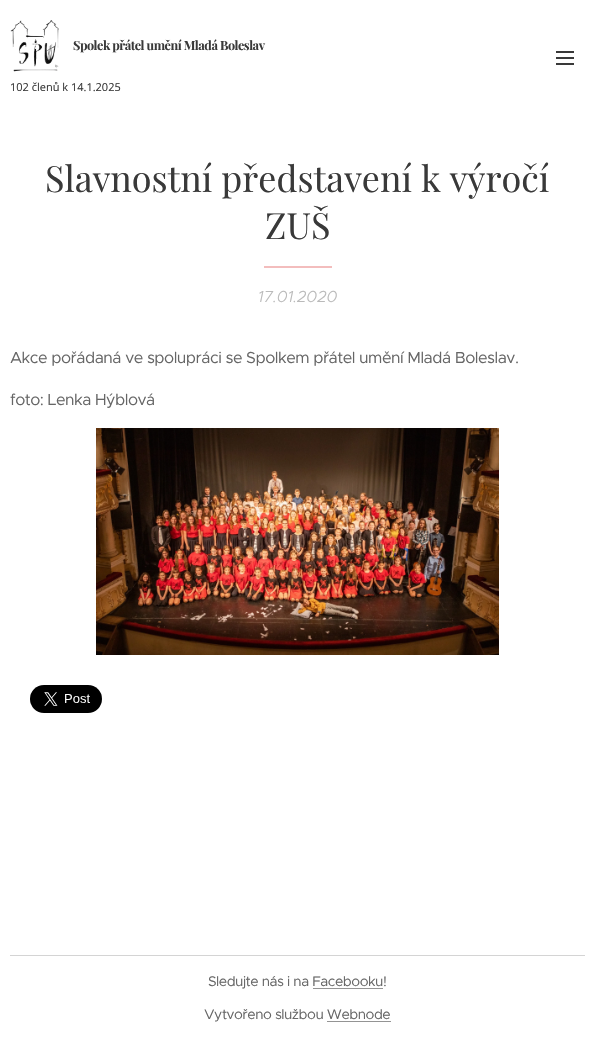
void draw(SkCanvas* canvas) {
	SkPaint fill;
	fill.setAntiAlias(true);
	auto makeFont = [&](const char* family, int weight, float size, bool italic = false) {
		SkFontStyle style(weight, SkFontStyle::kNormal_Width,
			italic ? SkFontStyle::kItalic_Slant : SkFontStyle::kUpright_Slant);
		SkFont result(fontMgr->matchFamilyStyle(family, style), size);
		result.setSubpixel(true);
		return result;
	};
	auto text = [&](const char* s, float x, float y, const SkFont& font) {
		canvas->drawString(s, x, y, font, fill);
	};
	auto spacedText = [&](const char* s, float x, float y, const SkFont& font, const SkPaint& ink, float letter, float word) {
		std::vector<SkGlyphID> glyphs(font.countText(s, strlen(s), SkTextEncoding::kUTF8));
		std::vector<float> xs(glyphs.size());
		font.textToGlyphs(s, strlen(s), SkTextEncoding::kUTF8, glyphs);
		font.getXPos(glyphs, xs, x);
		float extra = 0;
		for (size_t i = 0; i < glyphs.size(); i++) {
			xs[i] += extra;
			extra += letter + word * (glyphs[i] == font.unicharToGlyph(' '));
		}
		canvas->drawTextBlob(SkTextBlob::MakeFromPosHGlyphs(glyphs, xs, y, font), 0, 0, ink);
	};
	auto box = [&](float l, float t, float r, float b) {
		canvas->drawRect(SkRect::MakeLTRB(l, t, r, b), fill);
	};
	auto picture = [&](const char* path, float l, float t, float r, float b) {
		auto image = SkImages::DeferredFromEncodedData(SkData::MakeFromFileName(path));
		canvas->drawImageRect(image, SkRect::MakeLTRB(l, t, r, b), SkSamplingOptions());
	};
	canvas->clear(0xFFFFFFFF);
	picture("image0.png", 10, 20, 59, 72);
	fill.setColor(0xFF393939);
	box(556, 57, 574, 59);
	box(556, 51, 574, 53);
	box(556, 63, 574, 65);
	fill.setColor(0xFFF3BDBD);
	box(264, 266, 332, 268);
	picture("image1.png", 96, 428, 499, 655);
	picture("image2.png", 30, 685, 102, 713);
	fill.setColor(0xFFD4D4D4);
	box(10, 955, 585, 956);
	auto font1 = makeFont("Playfair Display", 700, 12.6f);
	fill.setColor(0xFF393939);
	spacedText("Spolek přátel umění Mladá Boleslav", 73, 50, font1, fill, -0.48f, 0);
	auto font2 = makeFont("Open Sans", 400, 11);
	text("102 členů k 14.1.2025", 10, 91, font2);
	auto font3 = makeFont("Playfair Display", 400, 36);
	text("Slavnostní představení k výročí", 45, 192, font3);
	text("ZUŠ", 265, 239, font3);
	auto font4 = makeFont("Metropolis", 300, 16, true);
	fill.setColor(0xFFBABABA);
	text("17.01.2020", 258, 302, font4);
	auto font5 = makeFont("Metropolis", 400, 16);
	fill.setColor(0xFF666666);
	spacedText("Akce pořádaná ve spolupráci se Spolkem přátel umění Mladá Boleslav.", 10, 363, font5, fill, -0.48f, 0);
	spacedText("foto: Lenka Hýblová", 10, 405, font5, fill, -0.48f, 0);
	auto font6 = makeFont("Metropolis", 400, 14);
	spacedText("Sledujte nás i na Facebooku!", 208, 986, font6, fill, -0.48f, 0);
	fill.setColor(0xFF949494);
	box(313, 988, 383, 989);
	fill.setColor(0xFF666666);
	spacedText("Vytvořeno službou Webnode", 204, 1019, font6, fill, -0.48f, 0);
	fill.setColor(0xFF949494);
	box(327, 1021, 391, 1022);
}
